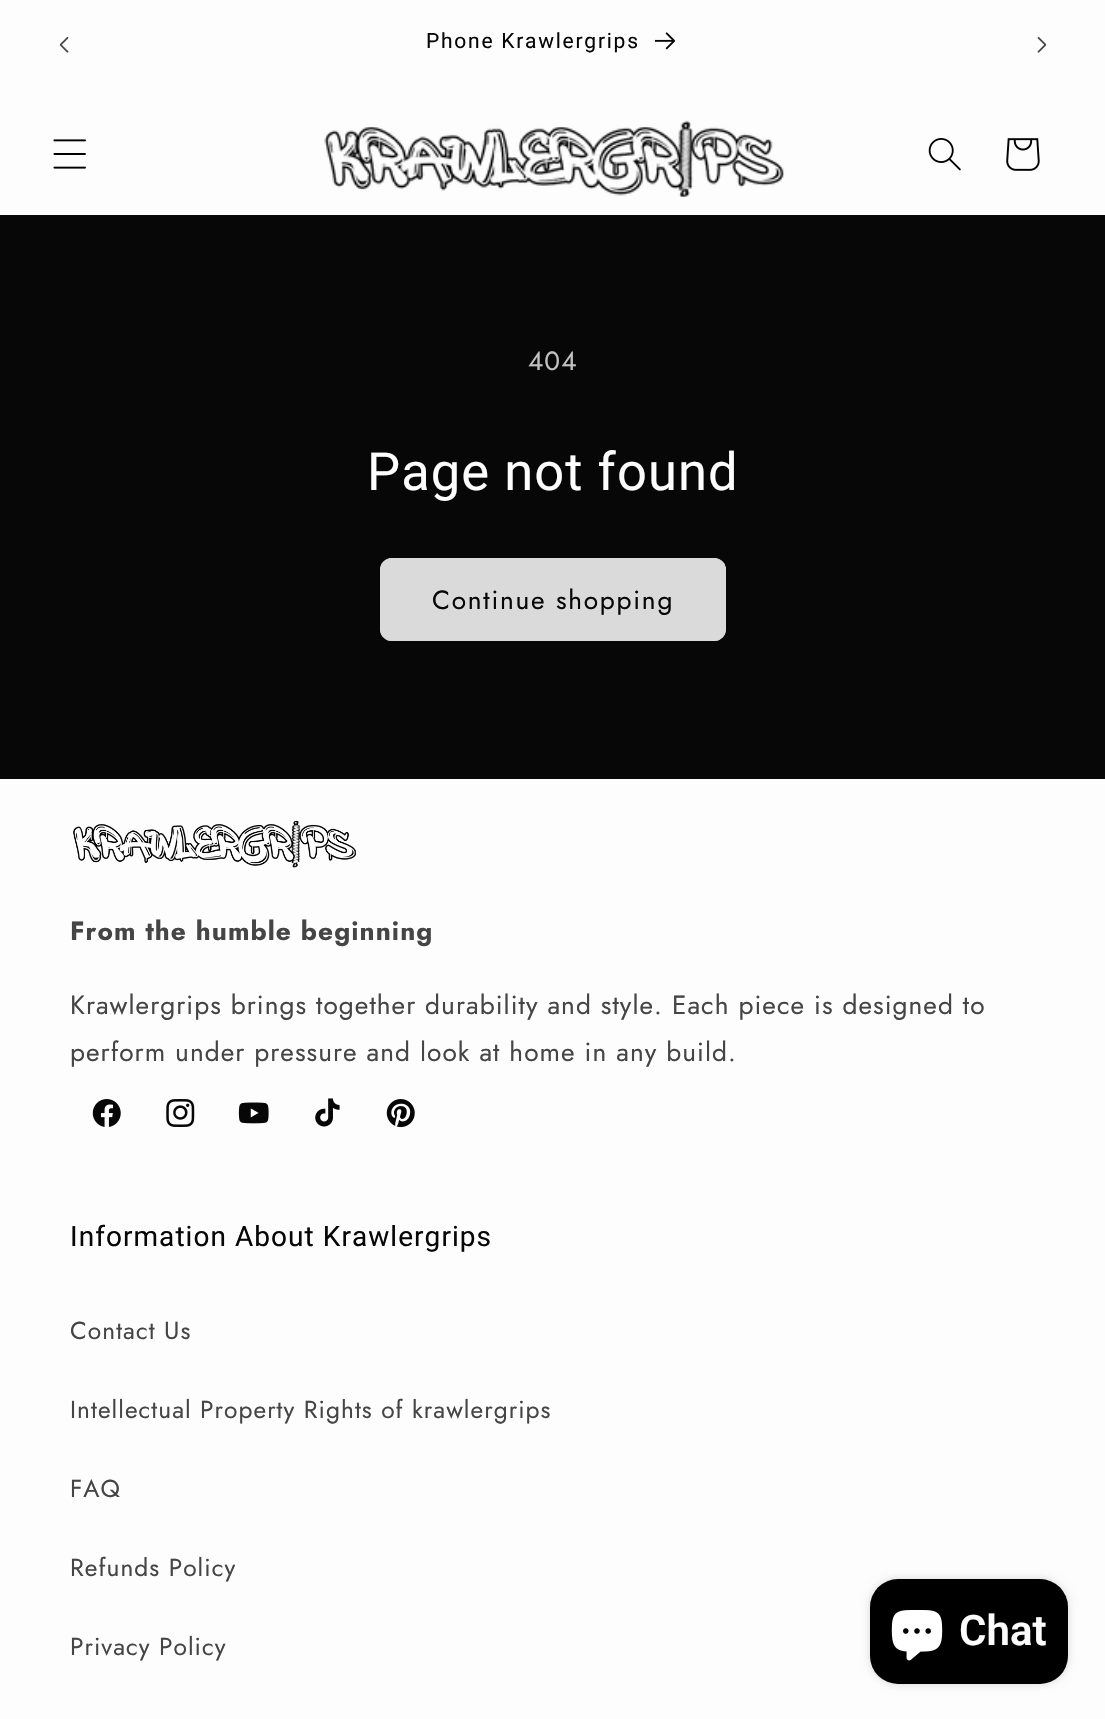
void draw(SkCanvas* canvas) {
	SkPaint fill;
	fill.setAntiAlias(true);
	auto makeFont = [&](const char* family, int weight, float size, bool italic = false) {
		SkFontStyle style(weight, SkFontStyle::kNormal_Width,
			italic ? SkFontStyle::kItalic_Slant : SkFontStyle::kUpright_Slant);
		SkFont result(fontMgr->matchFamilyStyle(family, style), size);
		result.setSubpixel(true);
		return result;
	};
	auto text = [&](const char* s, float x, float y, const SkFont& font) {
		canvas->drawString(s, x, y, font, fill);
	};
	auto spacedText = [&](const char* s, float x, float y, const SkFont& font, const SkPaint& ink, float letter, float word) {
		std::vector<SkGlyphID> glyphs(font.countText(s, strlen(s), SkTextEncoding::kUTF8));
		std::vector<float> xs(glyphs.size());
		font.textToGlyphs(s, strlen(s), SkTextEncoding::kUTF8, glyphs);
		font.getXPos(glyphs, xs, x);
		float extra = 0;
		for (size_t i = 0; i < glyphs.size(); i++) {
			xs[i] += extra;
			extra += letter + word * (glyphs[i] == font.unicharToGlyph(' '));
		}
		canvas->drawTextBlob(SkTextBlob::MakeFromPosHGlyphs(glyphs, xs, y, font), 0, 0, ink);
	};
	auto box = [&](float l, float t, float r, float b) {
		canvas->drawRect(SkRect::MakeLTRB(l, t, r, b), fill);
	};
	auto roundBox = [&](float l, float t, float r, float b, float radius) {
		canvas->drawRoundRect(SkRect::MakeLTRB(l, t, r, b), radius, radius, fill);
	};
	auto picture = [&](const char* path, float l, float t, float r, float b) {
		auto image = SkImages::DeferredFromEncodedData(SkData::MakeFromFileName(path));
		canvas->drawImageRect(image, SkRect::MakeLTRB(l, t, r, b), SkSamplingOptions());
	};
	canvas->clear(0xFF070707);
	fill.setColor(0xFFFDFDFD);
	box(0, 0, 1105, 215);
	picture("image0.png", 53, 139, 86, 169);
	picture("image1.png", 324, 120, 785, 198);
	picture("image2.png", 928, 138, 961, 171);
	picture("image3.png", 1006, 138, 1040, 171);
	picture("image4.png", 59, 37, 69, 53);
	picture("image5.png", 655, 32, 676, 50);
	picture("image6.png", 1037, 37, 1047, 53);
	fill.setColor(0xFFDADADA);
	roundBox(380, 558, 726, 641, 12);
	fill.setStyle(SkPaint::kStroke_Style);
	fill.setStrokeWidth(2);
	canvas->drawRoundRect(SkRect::MakeLTRB(381, 559, 725, 640), 11, 11, fill);
	fill.setStyle(SkPaint::kFill_Style);
	fill.setColor(0xFFFDFDFD);
	box(0, 779, 1105, 1719);
	picture("image7.png", 73, 820, 356, 868);
	picture("image8.png", 92, 1099, 121, 1127);
	picture("image9.png", 166, 1099, 195, 1127);
	picture("image10.png", 238, 1102, 269, 1124);
	picture("image11.png", 315, 1098, 340, 1127);
	picture("image12.png", 386, 1099, 415, 1128);
	fill.setColor(0x26000000);
	fill.setMaskFilter(SkMaskFilter::MakeBlur(kNormal_SkBlurStyle, 4.5f));
	canvas->drawRoundRect(SkRect::MakeLTRB(870, 1579, 1068, 1684), 28, 28, fill);
	fill.setMaskFilter(nullptr);
	fill.setColor(0xFF000000);
	roundBox(870, 1579, 1068, 1684, 28);
	picture("image13.png", 891, 1610, 943, 1661);
	auto font1 = makeFont("Roboto", 400, 21);
	fill.setColor(0xFF070707);
	spacedText("Phone Krawlergrips", 426, 48, font1, fill, 1.75f, 0);
	auto font2 = makeFont("Jost", 400, 26.25f);
	fill.setColor(0xFFC0C0C0);
	spacedText("404", 528, 370, font2, fill, 1.05f, 0);
	auto font3 = makeFont("Roboto", 400, 52.5f);
	fill.setColor(0xFFFDFDFD);
	spacedText("Page not found", 367, 490, font3, fill, 1.05f, 0);
	fill.setColor(0xFF070707);
	spacedText("Continue shopping", 432, 609, font2, fill, 1.75f, 0);
	auto font4 = makeFont("Jost", 700, 26.25f);
	fill.setColor(0xFF454545);
	spacedText("From the humble beginning", 70, 940, font4, fill, 1.05f, 0);
	spacedText("Krawlergrips brings together durability and style. Each piece is designed to", 70, 1014, font2, fill, 1.05f, 0);
	spacedText("perform under pressure and look at home in any build.", 70, 1061, font2, fill, 1.05f, 0);
	auto font5 = makeFont("Roboto", 400, 28);
	fill.setColor(0xFF070707);
	spacedText("Information About Krawlergrips", 70, 1246, font5, fill, 1.05f, 0);
	auto font6 = makeFont("Jost", 400, 24.5f);
	fill.setColor(0xFF454545);
	spacedText("Contact Us", 70, 1339, font6, fill, 1.05f, 0);
	spacedText("Intellectual Property Rights of krawlergrips", 70, 1418, font6, fill, 1.05f, 0);
	spacedText("FAQ", 70, 1497, font6, fill, 1.05f, 0);
	spacedText("Refunds Policy", 70, 1576, font6, fill, 1.05f, 0);
	spacedText("Privacy Policy", 70, 1655, font6, fill, 1.05f, 0);
	auto font7 = makeFont("Roboto", 600, 42);
	fill.setColor(0xFFFDFDFD);
	text("Chat", 959, 1645, font7);
}
